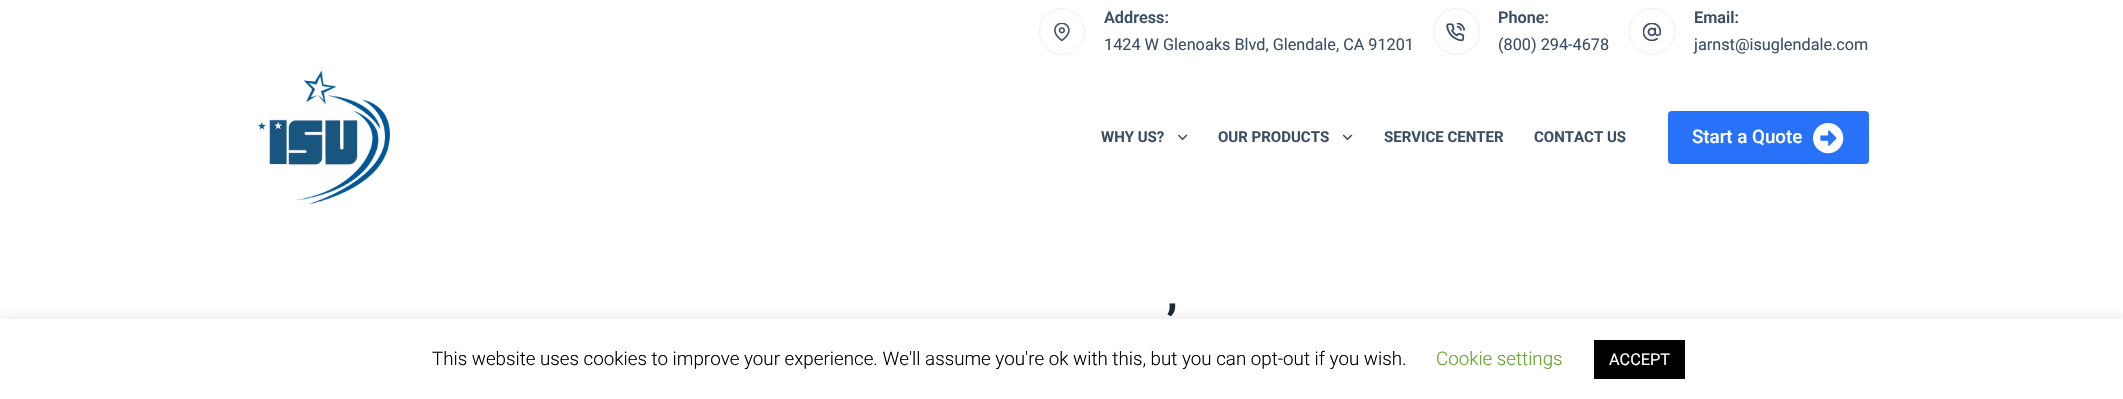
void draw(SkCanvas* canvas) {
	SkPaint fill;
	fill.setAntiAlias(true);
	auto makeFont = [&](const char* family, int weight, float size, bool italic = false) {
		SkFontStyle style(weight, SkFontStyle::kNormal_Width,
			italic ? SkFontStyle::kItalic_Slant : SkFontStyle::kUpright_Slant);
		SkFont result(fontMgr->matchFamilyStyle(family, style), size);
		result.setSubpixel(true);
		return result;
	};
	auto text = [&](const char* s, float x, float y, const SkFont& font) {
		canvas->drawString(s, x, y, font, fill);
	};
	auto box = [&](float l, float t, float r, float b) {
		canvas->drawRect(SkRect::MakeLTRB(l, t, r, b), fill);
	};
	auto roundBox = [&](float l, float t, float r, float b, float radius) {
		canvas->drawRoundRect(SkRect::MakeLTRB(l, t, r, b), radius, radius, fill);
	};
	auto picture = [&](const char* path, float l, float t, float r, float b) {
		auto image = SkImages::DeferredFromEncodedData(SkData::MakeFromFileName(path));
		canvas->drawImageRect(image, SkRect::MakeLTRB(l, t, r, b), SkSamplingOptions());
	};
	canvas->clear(0xFFFFFFFF);
	fill.setStyle(SkPaint::kStroke_Style);
	fill.setStrokeWidth(1);
	fill.setColor(0xFFEDEFF2);
	canvas->drawRoundRect(SkRect::MakeLTRB(1039.5f, 8.5f, 1084.5f, 54.5f), 22.5f, 22.5f, fill);
	picture("image0.png", 1054, 23, 1070, 41);
	canvas->drawCircle(1456.5f, 31.5f, 23, fill);
	picture("image1.png", 1446, 23, 1465, 41);
	canvas->drawRoundRect(SkRect::MakeLTRB(1629.5f, 8.5f, 1674.5f, 54.5f), 22.5f, 22.5f, fill);
	picture("image2.png", 1643, 23, 1661, 41);
	picture("image3.png", 258, 70, 391, 205);
	picture("image4.png", 1178, 134, 1188, 141);
	picture("image4.png", 1343, 134, 1353, 141);
	fill.setStyle(SkPaint::kFill_Style);
	fill.setColor(0xFF2872FA);
	roundBox(1668, 111, 1869, 164, 4);
	picture("image5.png", 1813, 123, 1844, 154);
	fill.setColor(0x4DACABAB);
	fill.setMaskFilter(SkMaskFilter::MakeBlur(kNormal_SkBlurStyle, 6));
	canvas->drawRect(SkRect::MakeLTRB(0, 318, 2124, 399), fill);
	fill.setMaskFilter(nullptr);
	fill.setColor(0xFFFFFFFF);
	box(0, 319, 2123, 399);
	fill.setColor(0xFF000000);
	box(1594, 340, 1685, 379);
	auto font1 = makeFont("Roboto", 600, 16.25f);
	fill.setColor(0xFF3A4F66);
	text("Address:", 1104, 23, font1);
	auto font2 = makeFont("Roboto", 400, 16.25f);
	text("1424 W Glenoaks Blvd, Glendale, CA 91201", 1104, 50, font2);
	text("Phone:", 1498, 23, font1);
	text("(800) 294-4678", 1498, 50, font2);
	text("Email:", 1694, 23, font1);
	text("jarnst@isuglendale.com", 1694, 50, font2);
	auto font3 = makeFont("Roboto", 700, 15);
	text("WHY US?", 1101, 142, font3);
	text("OUR PRODUCTS", 1218, 142, font3);
	text("SERVICE CENTER", 1384, 142, font3);
	text("CONTACT US", 1534, 142, font3);
	auto font4 = makeFont("Roboto", 500, 18.75f);
	fill.setColor(0xFFFFFFFF);
	text("Start a Quote", 1692, 143, font4);
	auto font5 = makeFont("Roboto", 700, 50);
	fill.setColor(0xFF192A3D);
	text("’", 1166, 341, font5);
	auto font6 = makeFont("Roboto", 300, 18.75f);
	fill.setColor(0xFF000000);
	text("This website uses cookies to improve your experience. We'll assume you're ok with this, but you can opt-out if you wish.", 432, 365, font6);
	fill.setColor(0xFF62A329);
	text("Cookie settings", 1436, 365, font6);
	fill.setColor(0xFFFFFFFF);
	text("ACCEPT", 1609, 365, font2);
}
